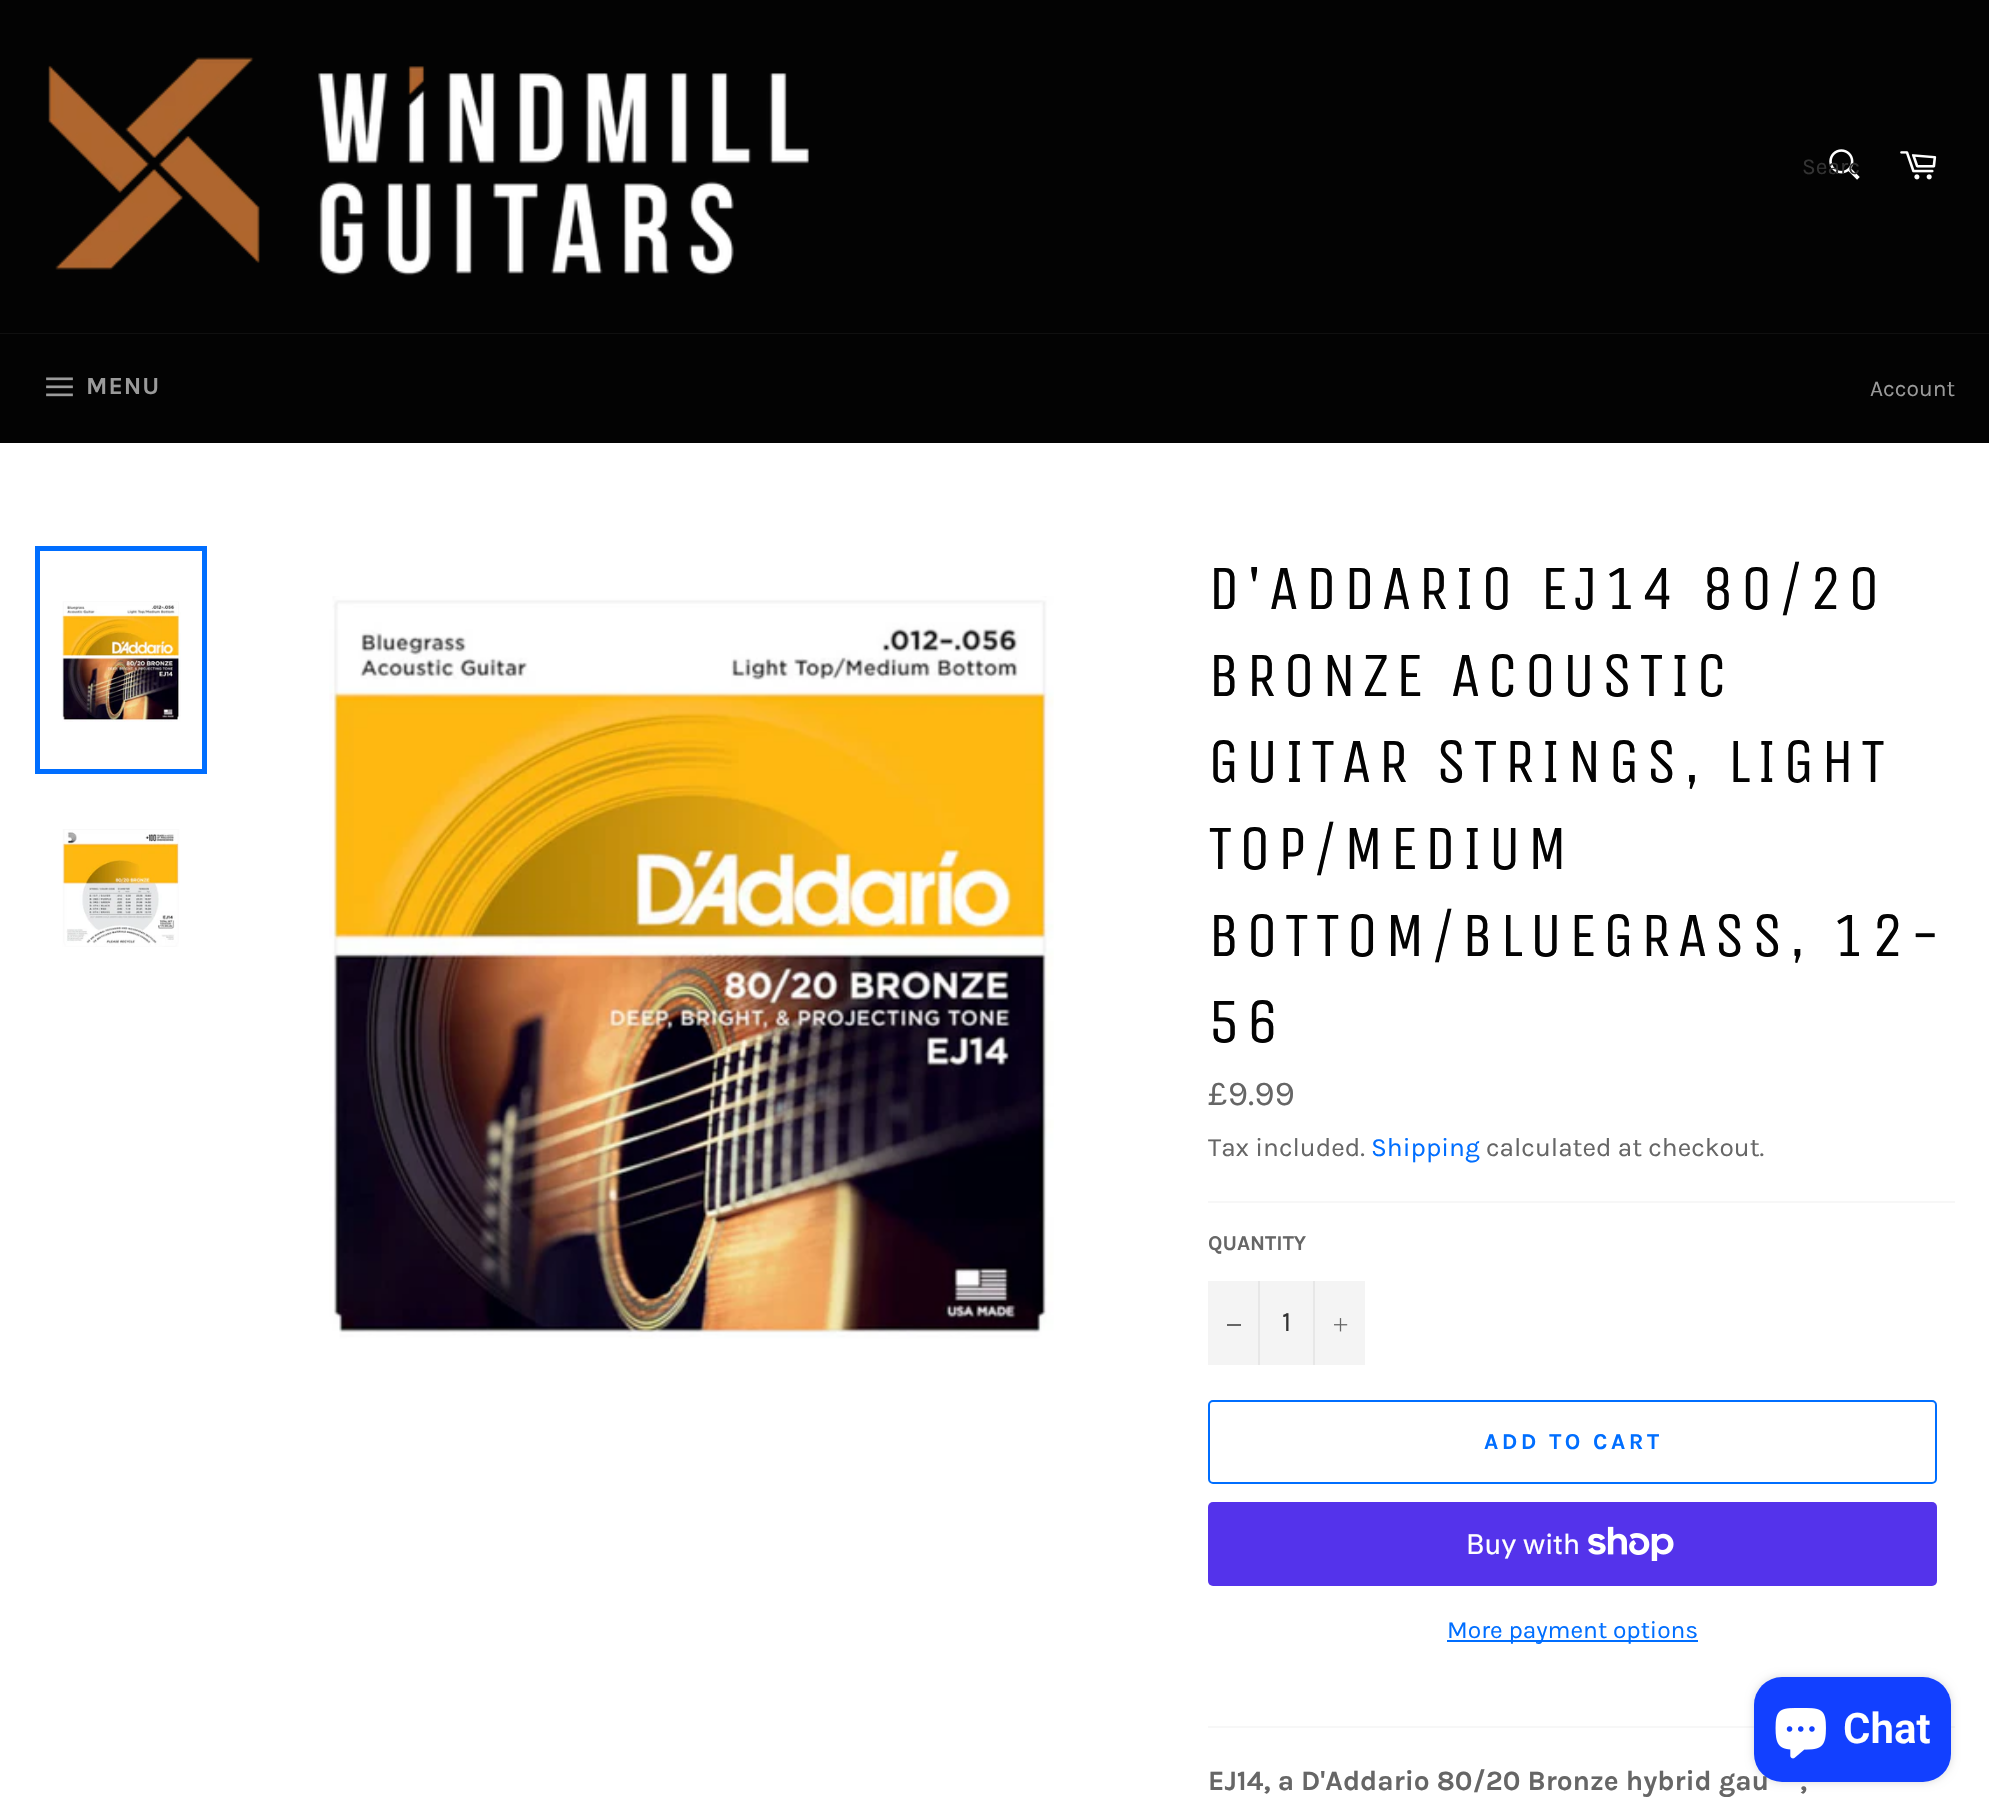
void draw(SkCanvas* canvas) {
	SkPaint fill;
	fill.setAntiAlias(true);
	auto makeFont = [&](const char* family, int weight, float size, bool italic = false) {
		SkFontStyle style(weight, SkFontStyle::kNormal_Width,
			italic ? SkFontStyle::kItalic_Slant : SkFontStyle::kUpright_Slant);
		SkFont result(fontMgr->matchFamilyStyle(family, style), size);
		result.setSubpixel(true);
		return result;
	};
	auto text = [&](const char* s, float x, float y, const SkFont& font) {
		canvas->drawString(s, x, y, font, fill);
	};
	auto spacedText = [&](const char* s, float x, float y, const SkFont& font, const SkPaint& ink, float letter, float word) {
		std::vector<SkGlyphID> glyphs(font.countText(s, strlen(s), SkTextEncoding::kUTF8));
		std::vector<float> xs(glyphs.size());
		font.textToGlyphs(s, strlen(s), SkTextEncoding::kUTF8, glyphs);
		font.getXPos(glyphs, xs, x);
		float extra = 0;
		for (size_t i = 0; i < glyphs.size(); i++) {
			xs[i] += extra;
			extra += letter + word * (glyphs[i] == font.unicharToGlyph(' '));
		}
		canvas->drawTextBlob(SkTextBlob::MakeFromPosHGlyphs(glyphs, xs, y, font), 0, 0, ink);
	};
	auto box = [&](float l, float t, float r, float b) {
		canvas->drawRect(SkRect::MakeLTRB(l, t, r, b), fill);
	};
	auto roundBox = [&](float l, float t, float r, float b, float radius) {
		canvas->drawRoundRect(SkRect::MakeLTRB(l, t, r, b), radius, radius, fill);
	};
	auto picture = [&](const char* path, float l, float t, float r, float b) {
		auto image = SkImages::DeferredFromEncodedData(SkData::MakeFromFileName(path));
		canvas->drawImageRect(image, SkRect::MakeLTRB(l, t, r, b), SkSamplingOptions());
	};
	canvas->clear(0xFF030303);
	picture("image0.png", 48, 57, 809, 276);
	picture("image1.png", 1829, 149, 1860, 180);
	picture("image2.png", 1900, 151, 1937, 180);
	fill.setColor(0xFF101010);
	box(0, 333, 1989, 334);
	picture("image3.png", 46, 377, 73, 397);
	fill.setColor(0xFFFFFFFF);
	box(0, 443, 1989, 1817);
	picture("image4.png", 61, 601, 181, 722);
	fill.setStyle(SkPaint::kStroke_Style);
	fill.setStrokeWidth(5);
	fill.setColor(0xFF006EFF);
	canvas->drawRect(SkRect::MakeLTRB(37.5f, 548.5f, 204.5f, 771.5f), fill);
	picture("image5.png", 62, 829, 180, 947);
	picture("image6.png", 329, 596, 1054, 1339);
	fill.setStyle(SkPaint::kFill_Style);
	fill.setColor(0xFFF7F7F7);
	box(1208, 1201, 1955, 1203);
	fill.setColor(0xFFF4F4F4);
	box(1208, 1281, 1365, 1365);
	fill.setColor(0xFFE7E7E7);
	box(1258, 1281, 1260, 1365);
	fill.setColor(0xFF666666);
	box(1227, 1324, 1241, 1326);
	fill.setColor(0xFFE7E7E7);
	box(1313, 1281, 1315, 1365);
	picture("image7.png", 1334, 1318, 1348, 1332);
	fill.setStyle(SkPaint::kStroke_Style);
	fill.setStrokeWidth(2);
	fill.setColor(0xFF006EFF);
	canvas->drawRoundRect(SkRect::MakeLTRB(1209, 1401, 1936, 1483), 4, 4, fill);
	fill.setStyle(SkPaint::kFill_Style);
	fill.setColor(0xFF5433EB);
	roundBox(1208, 1502, 1937, 1586, 5);
	picture("image8.png", 1588, 1526, 1674, 1561);
	fill.setColor(0xFF006EFF);
	box(1447, 1640, 1698, 1642);
	fill.setColor(0xFFF7F7F7);
	box(1208, 1726, 1955, 1728);
	fill.setColor(0x26000000);
	fill.setMaskFilter(SkMaskFilter::MakeBlur(kNormal_SkBlurStyle, 4.5f));
	canvas->drawRoundRect(SkRect::MakeLTRB(1754, 1677, 1951, 1782), 28, 28, fill);
	fill.setMaskFilter(nullptr);
	auto font1 = makeFont("Karla", 400, 22.75f);
	fill.setColor(0xFF333333);
	text("Searc", 1802, 174, font1);
	auto font2 = makeFont("Karla", 700, 24.5f);
	fill.setColor(0xFF9A9A9A);
	spacedText("MENU", 86, 394, font2, fill, 1, 0);
	text("Account", 1870, 396, font1);
	auto font3 = makeFont("Unica One", 400, 63);
	fill.setColor(0xFF030303);
	spacedText("D'ADDARIO EJ14 80/20", 1208, 609, font3, fill, 6.3f, 0);
	spacedText("BRONZE ACOUSTIC", 1208, 696, font3, fill, 6.3f, 0);
	spacedText("GUITAR STRINGS, LIGHT", 1208, 782, font3, fill, 6.3f, 0);
	spacedText("TOP/MEDIUM", 1208, 869, font3, fill, 6.3f, 0);
	spacedText("BOTTOM/BLUEGRASS, 12-", 1208, 956, font3, fill, 6.3f, 0);
	spacedText("56", 1208, 1042, font3, fill, 6.3f, 0);
	auto font4 = makeFont("Karla", 400, 35);
	fill.setColor(0xFF666666);
	text("£9.99", 1208, 1105, font4);
	auto font5 = makeFont("Karla", 400, 26.25f);
	text("Tax included.", 1208, 1156, font5);
	fill.setColor(0xFF006EFF);
	text("Shipping", 1371, 1156, font5);
	fill.setColor(0xFF666666);
	text("calculated at checkout.", 1486, 1156, font5);
	auto font6 = makeFont("Karla", 700, 21);
	text("QUANTITY", 1208, 1250, font6);
	auto font7 = makeFont("Karla", 400, 28);
	fill.setColor(0xFF333333);
	text("1", 1282, 1331, font7);
	auto font8 = makeFont("Karla", 700, 22.75f);
	fill.setColor(0xFF006EFF);
	spacedText("ADD TO CART", 1484, 1449, font8, fill, 3.5f, 0);
	auto font9 = makeFont("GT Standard", 400, 28);
	fill.setColor(0xFFFFFFFF);
	text("Buy with", 1466, 1554, font9);
	auto font10 = makeFont("Karla", 400, 24.5f);
	fill.setColor(0xFF006EFF);
	text("More payment options", 1447, 1638, font10);
	auto font11 = makeFont("Karla", 700, 28);
	fill.setColor(0xFF666666);
	text("EJ14, a D'Addario 80/20 Bronze hybrid gau", 1208, 1790, font11);
	text(",", 1800, 1790, font11);
	fill.setColor(0xFF1240FF);
	roundBox(1754, 1677, 1951, 1782, 28);
	picture("image9.png", 1775, 1708, 1826, 1759);
	auto font12 = makeFont("Roboto", 600, 42);
	fill.setColor(0xFFFFFFFF);
	text("Chat", 1843, 1743, font12);
}
